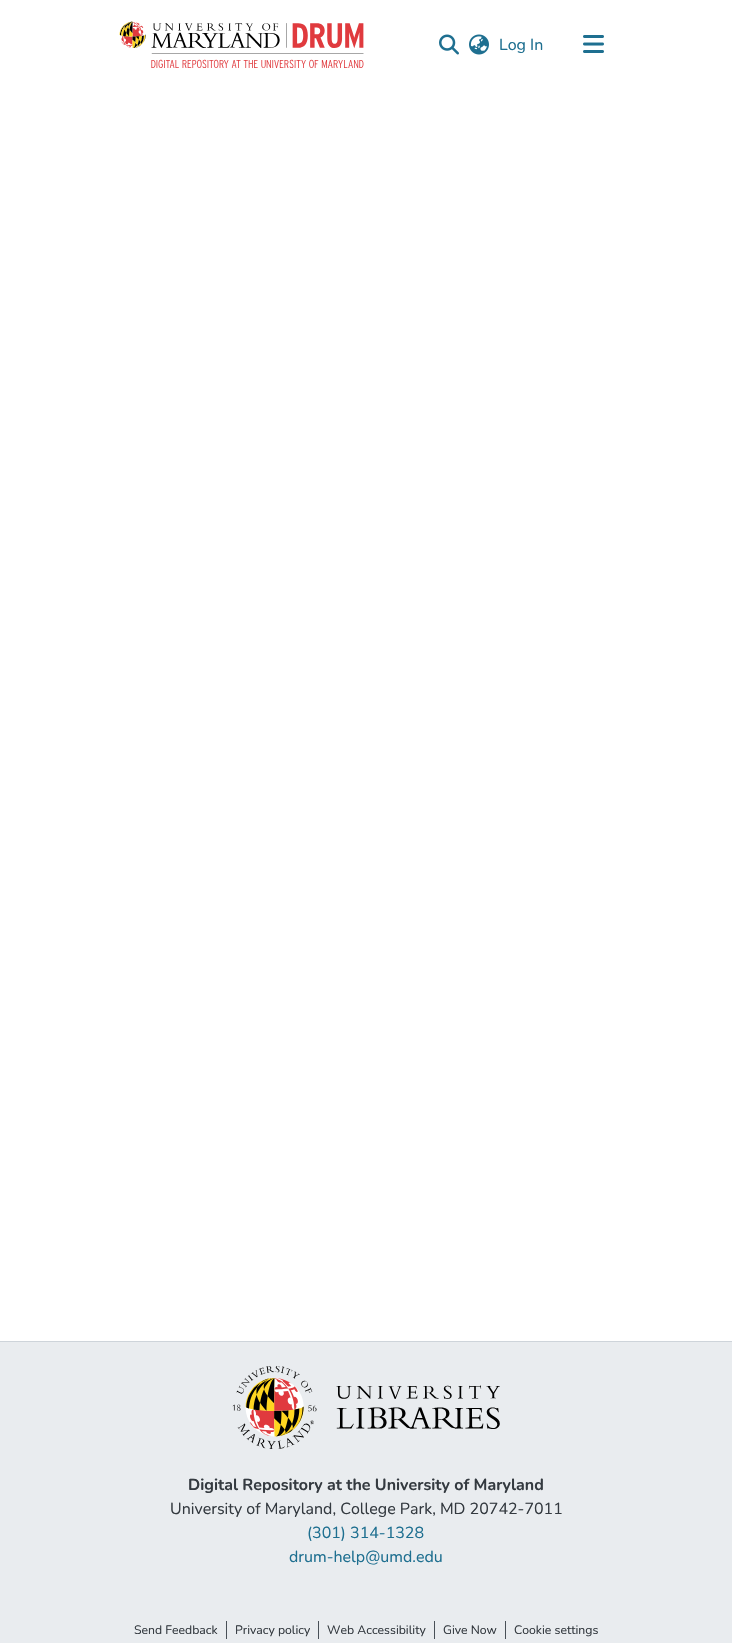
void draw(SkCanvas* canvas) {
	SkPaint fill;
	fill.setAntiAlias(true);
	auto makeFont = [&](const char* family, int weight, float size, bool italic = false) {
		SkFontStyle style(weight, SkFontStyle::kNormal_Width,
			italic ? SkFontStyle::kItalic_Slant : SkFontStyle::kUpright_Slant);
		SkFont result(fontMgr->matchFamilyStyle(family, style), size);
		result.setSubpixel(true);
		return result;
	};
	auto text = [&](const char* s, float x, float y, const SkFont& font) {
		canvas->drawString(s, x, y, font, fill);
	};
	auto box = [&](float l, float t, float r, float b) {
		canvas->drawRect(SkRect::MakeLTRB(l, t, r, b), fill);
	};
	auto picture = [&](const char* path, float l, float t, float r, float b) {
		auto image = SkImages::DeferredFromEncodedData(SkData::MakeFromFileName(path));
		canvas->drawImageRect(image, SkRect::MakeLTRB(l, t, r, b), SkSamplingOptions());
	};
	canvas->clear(0xFFFFFFFF);
	picture("image0.png", 119, 21, 364, 68);
	picture("image1.png", 439, 34, 459, 55);
	picture("image2.png", 469, 34, 489, 55);
	picture("image3.png", 583, 35, 604, 53);
	fill.setColor(0xFFE9ECEF);
	box(0, 1342, 732, 1643);
	fill.setColor(0xFFCED4DA);
	box(0, 1341, 732, 1342);
	picture("image4.png", 232, 1366, 500, 1449);
	fill.setColor(0xFF495057);
	box(226, 1621, 227, 1639);
	box(318, 1621, 319, 1639);
	box(434, 1621, 435, 1639);
	box(505, 1621, 506, 1639);
	auto font1 = makeFont("Nunito", 400, 16);
	fill.setColor(0xFF1E6F90);
	text("Log In", 499, 50, font1);
	auto font2 = makeFont("Nunito", 700, 16);
	fill.setColor(0xFF343A40);
	text("Digital Repository at the University of Maryland", 188, 1490, font2);
	text("University of Maryland, College Park, MD 20742-7011", 170, 1514, font1);
	fill.setColor(0xFF1E6F90);
	text("(301) 314-1328", 307, 1538, font1);
	text("drum-help@umd.edu", 289, 1562, font1);
	auto font3 = makeFont("Nunito", 400, 12.25f);
	fill.setColor(0xFF343A40);
	text("Send Feedback", 134, 1634, font3);
	text("Privacy policy", 235, 1634, font3);
	text("Web Accessibility", 327, 1634, font3);
	text("Give Now", 443, 1634, font3);
	text("Cookie settings", 514, 1634, font3);
}
